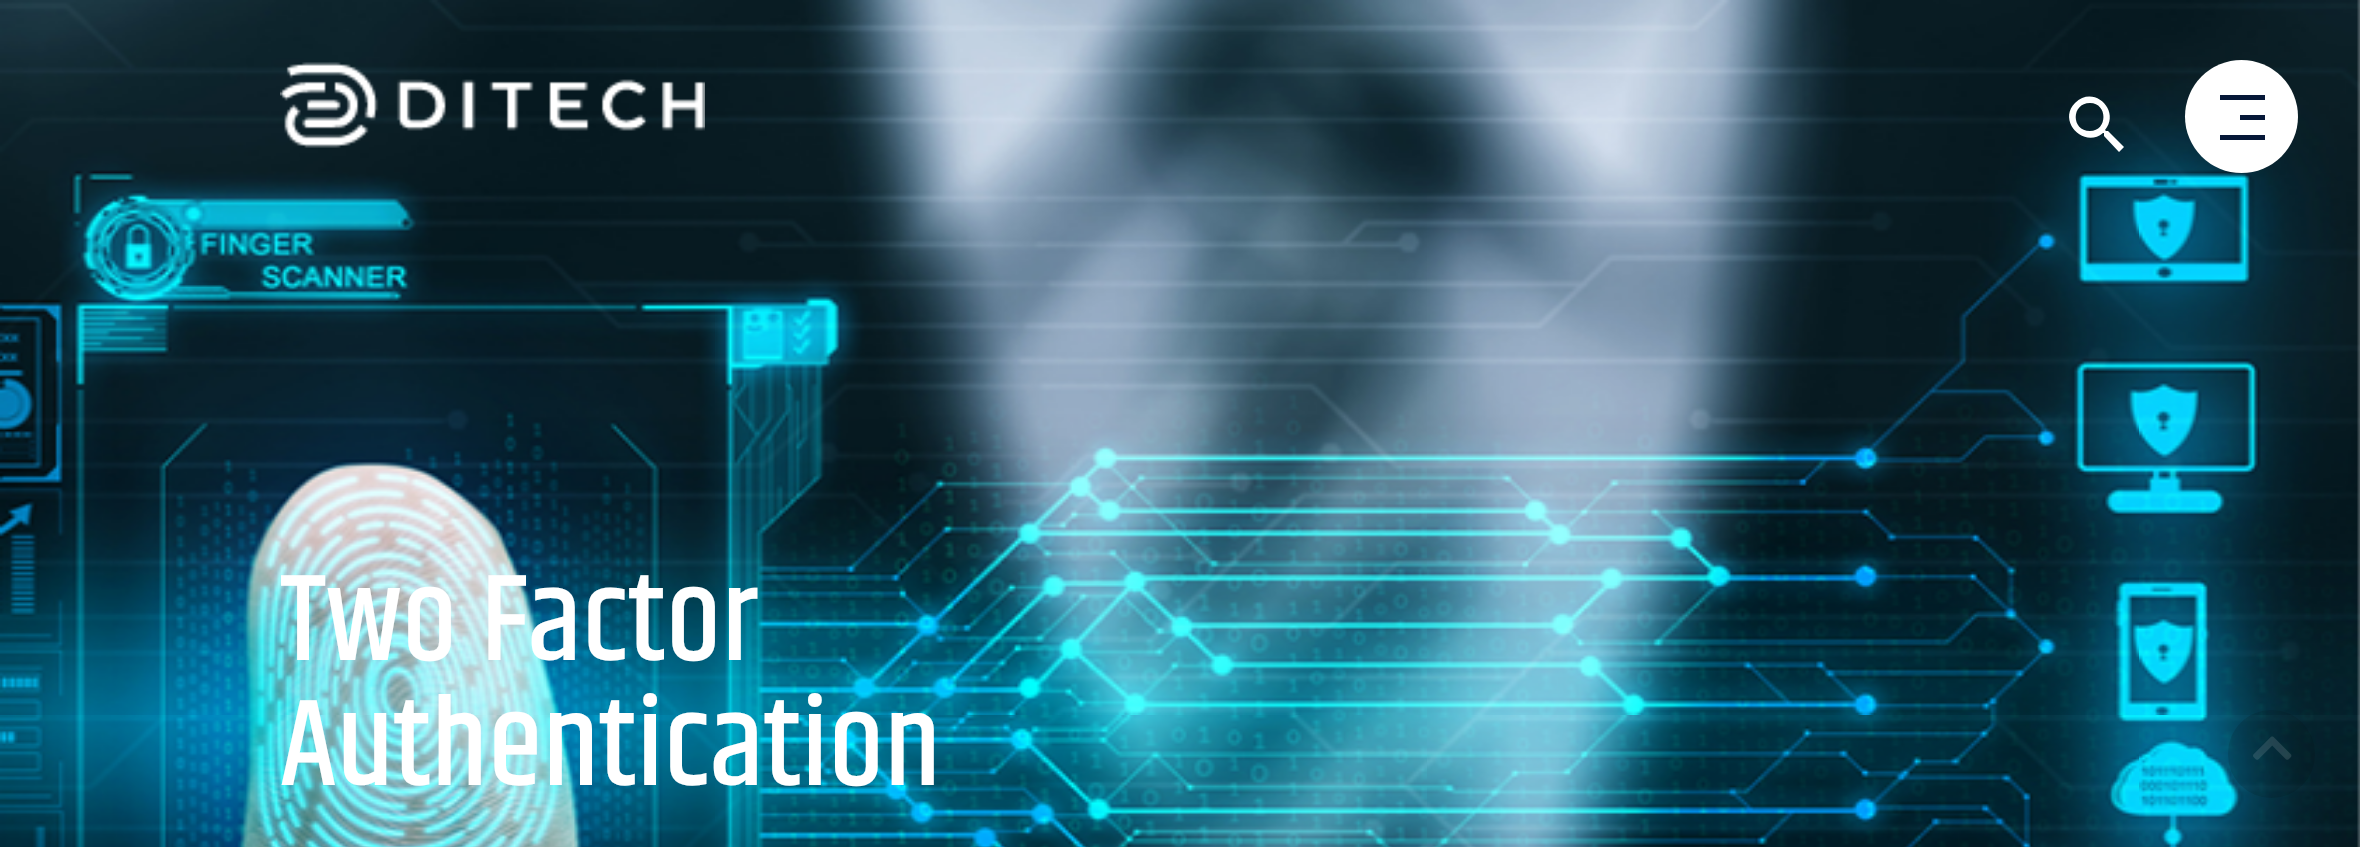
void draw(SkCanvas* canvas) {
	SkPaint fill;
	fill.setAntiAlias(true);
	auto makeFont = [&](const char* family, int weight, float size, bool italic = false) {
		SkFontStyle style(weight, SkFontStyle::kNormal_Width,
			italic ? SkFontStyle::kItalic_Slant : SkFontStyle::kUpright_Slant);
		SkFont result(fontMgr->matchFamilyStyle(family, style), size);
		result.setSubpixel(true);
		return result;
	};
	auto text = [&](const char* s, float x, float y, const SkFont& font) {
		canvas->drawString(s, x, y, font, fill);
	};
	auto box = [&](float l, float t, float r, float b) {
		canvas->drawRect(SkRect::MakeLTRB(l, t, r, b), fill);
	};
	auto roundBox = [&](float l, float t, float r, float b, float radius) {
		canvas->drawRoundRect(SkRect::MakeLTRB(l, t, r, b), radius, radius, fill);
	};
	auto picture = [&](const char* path, float l, float t, float r, float b) {
		auto image = SkImages::DeferredFromEncodedData(SkData::MakeFromFileName(path));
		canvas->drawImageRect(image, SkRect::MakeLTRB(l, t, r, b), SkSamplingOptions());
	};
	canvas->clear(0xFFFFFFFF);
	picture("image1.png", 0, 0, 2360, 847);
	picture("image0.png", 280, 62, 705, 148);
	fill.setColor(0xFFFFFFFF);
	canvas->drawPath(SkPathBuilder().moveTo(2108, 131).lineTo(2106, 131).lineTo(2105, 130).cubicTo(2121, 111, 2094, 84, 2075, 103).cubicTo(2057, 121, 2084, 149, 2103, 133).lineTo(2104, 133).lineTo(2104, 136).lineTo(2119, 152).lineTo(2124, 147).close().moveTo(2090, 131).cubicTo(2071, 131, 2071, 103, 2090, 103).cubicTo(2108, 103, 2108, 131, 2090, 131).close().detach(), fill);
	canvas->drawCircle(2241.5f, 116.5f, 56.5f, fill);
	fill.setColor(0xFF061838);
	box(2220, 95, 2265, 100);
	box(2240, 115, 2265, 120);
	box(2220, 135, 2265, 140);
	fill.setColor(0x1F000000);
	roundBox(2228, 710, 2315, 798, 43.5f);
	picture("image2.png", 2253, 736, 2292, 760);
	auto font1 = makeFont("Khand", 500, 125);
	fill.setColor(0xFFFFFFFF);
	text("Two Factor", 280, 660, font1);
	text("Authentication", 280, 785, font1);
}
